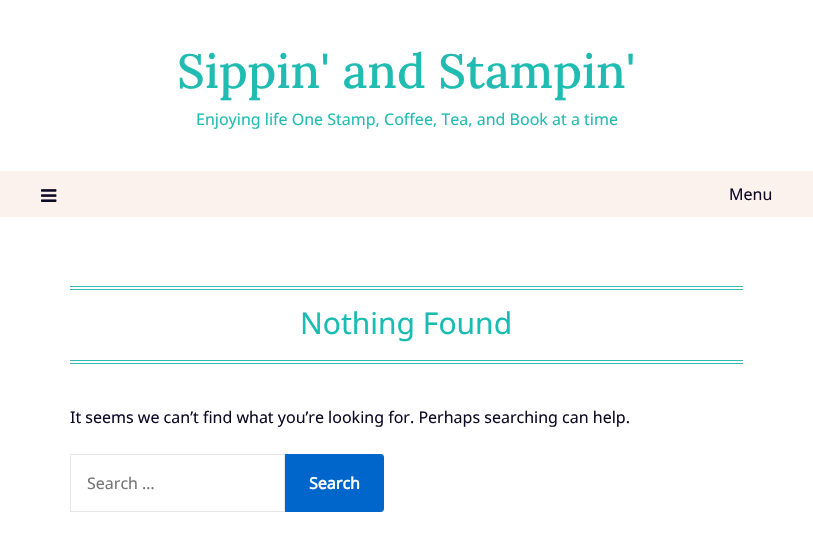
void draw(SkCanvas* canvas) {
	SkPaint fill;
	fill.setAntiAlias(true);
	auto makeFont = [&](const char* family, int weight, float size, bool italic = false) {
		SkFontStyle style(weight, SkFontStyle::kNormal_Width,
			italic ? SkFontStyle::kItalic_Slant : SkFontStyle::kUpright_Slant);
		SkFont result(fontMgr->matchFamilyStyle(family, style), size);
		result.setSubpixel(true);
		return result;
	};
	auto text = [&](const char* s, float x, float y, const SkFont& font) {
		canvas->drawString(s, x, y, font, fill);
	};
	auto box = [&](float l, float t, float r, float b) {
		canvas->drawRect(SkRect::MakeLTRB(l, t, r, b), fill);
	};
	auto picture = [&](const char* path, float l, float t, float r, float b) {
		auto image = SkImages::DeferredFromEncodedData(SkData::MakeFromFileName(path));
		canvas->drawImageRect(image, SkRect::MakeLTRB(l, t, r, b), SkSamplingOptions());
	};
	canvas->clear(0xFFFFFFFF);
	fill.setColor(0xFFFBF2EE);
	box(0, 171, 813, 217);
	picture("image0.png", 41, 189, 57, 202);
	fill.setColor(0xFF32BCB3);
	box(70, 286, 743, 287);
	box(70, 289, 743, 290);
	box(70, 360, 743, 361);
	box(70, 363, 743, 364);
	fill.setStyle(SkPaint::kStroke_Style);
	fill.setStrokeWidth(1);
	fill.setColor(0xFFE5E6E9);
	canvas->drawRect(SkRect::MakeLTRB(70.5f, 454.5f, 284.5f, 511.5f), fill);
	fill.setStyle(SkPaint::kFill_Style);
	fill.setColor(0xFF0066CC);
	canvas->drawPath(SkPathBuilder().moveTo(285, 454).lineTo(381, 454).cubicTo(382.5f, 454, 384, 455.5f, 384, 457).lineTo(384, 509).cubicTo(384, 510.5f, 382.5f, 512, 381, 512).lineTo(285, 512).close().detach(), fill);
	auto font1 = makeFont("Lora", 500, 48);
	fill.setColor(0xFF20BCB2);
	text("Sippin' and Stampin'", 177, 88, font1);
	auto font2 = makeFont("Noto Sans", 400, 16);
	text("Enjoying life One Stamp, Coffee, Tea, and Book at a time", 196, 125, font2);
	fill.setColor(0xFF0E0925);
	text("Menu", 729, 200, font2);
	auto font3 = makeFont("Noto Sans", 400, 30);
	fill.setColor(0xFF18BCB1);
	text("Nothing Found", 300, 334, font3);
	fill.setColor(0xFF0E0925);
	text("It seems we can’t find what you’re looking for. Perhaps searching can help.", 70, 423, font2);
	fill.setColor(0xFF757575);
	text("Search …", 87, 489, font2);
	auto font4 = makeFont("Noto Sans", 700, 16);
	fill.setColor(0xFFFFFFFF);
	text("Search", 309, 489, font4);
}
